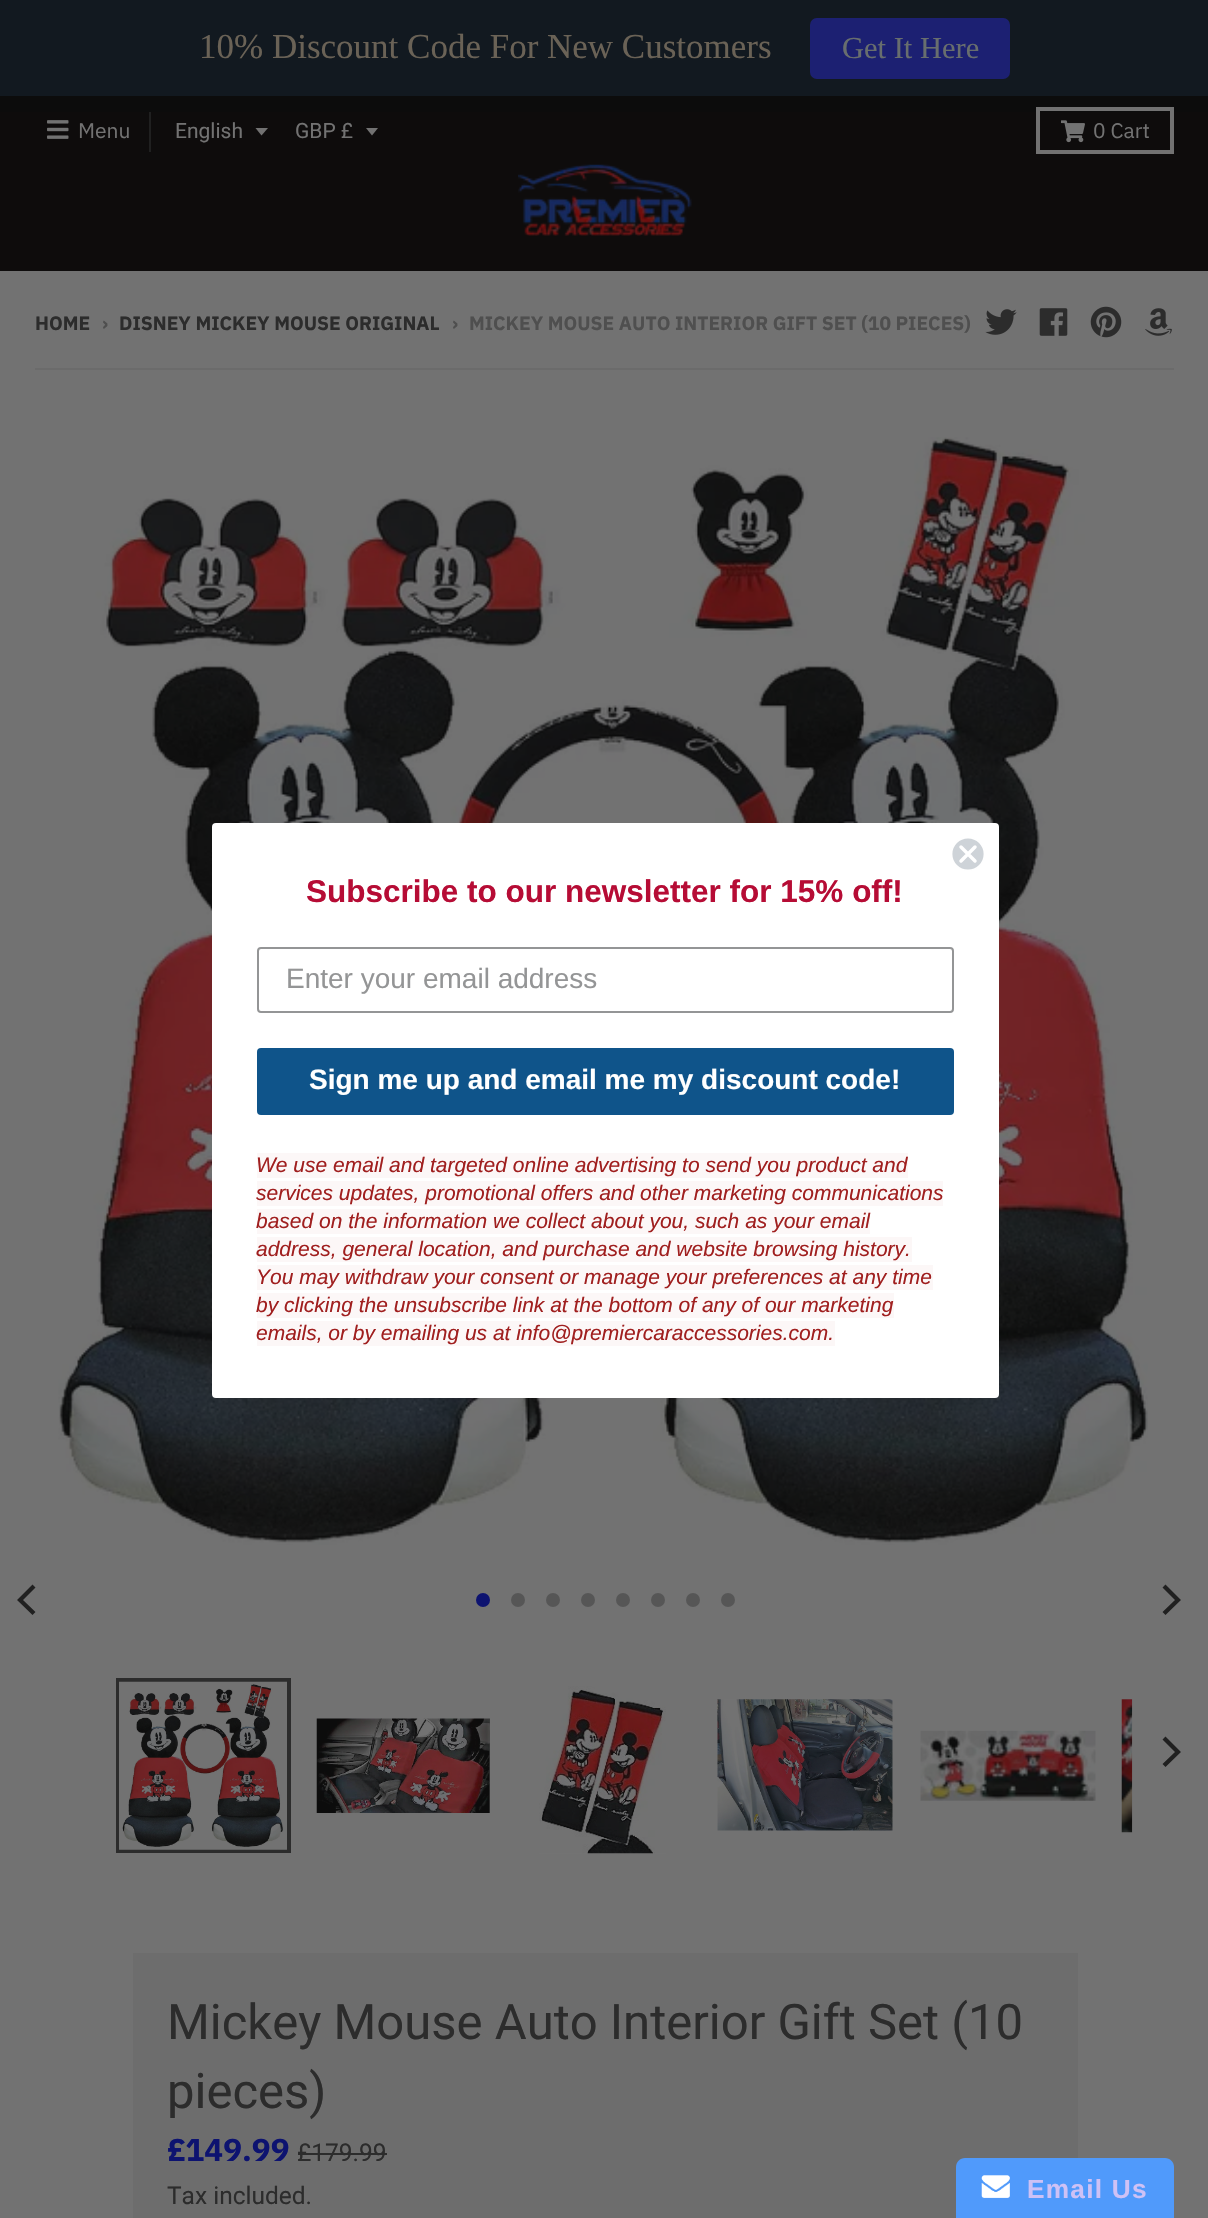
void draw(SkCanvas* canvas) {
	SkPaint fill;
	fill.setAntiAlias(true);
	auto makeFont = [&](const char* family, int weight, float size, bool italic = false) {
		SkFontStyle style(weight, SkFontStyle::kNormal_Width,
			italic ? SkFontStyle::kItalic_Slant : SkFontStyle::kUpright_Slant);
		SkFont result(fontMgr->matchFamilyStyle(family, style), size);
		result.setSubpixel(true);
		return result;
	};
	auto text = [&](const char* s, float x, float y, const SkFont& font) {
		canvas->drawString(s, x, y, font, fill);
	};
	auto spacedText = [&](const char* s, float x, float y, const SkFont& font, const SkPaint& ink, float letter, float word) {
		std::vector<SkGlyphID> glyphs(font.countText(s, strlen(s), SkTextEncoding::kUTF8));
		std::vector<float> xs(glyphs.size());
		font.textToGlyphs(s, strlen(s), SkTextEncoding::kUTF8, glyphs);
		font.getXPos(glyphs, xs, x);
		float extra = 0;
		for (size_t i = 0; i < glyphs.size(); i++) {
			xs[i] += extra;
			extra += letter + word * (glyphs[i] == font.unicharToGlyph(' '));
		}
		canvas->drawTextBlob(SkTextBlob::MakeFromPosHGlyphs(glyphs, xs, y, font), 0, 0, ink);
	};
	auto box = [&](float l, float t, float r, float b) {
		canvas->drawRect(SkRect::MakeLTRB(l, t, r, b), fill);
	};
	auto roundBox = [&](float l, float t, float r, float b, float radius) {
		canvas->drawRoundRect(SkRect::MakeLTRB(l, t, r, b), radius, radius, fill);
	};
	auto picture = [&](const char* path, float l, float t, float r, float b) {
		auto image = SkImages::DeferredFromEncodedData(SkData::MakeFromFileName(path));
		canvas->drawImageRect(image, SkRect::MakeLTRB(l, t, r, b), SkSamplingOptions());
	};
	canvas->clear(0xFF727272);
	fill.setColor(0xFF121920);
	box(0, 0, 1208, 96);
	fill.setColor(0xFF1C2072);
	roundBox(810, 18, 1010, 79, 7);
	fill.setColor(0xFF0E0C0C);
	box(0, 112, 1208, 271);
	picture("image0.png", 518, 164, 692, 236);
	fill.setColor(0xFF0C0C0C);
	box(0, 96, 1208, 112);
	picture("image1.png", 47, 120, 69, 139);
	fill.setColor(0xFF202020);
	box(149, 112, 151, 152);
	fill.setColor(0xFF727272);
	canvas->drawPath(SkPathBuilder().moveTo(255.5f, 128).lineTo(261.5f, 135.5f).lineTo(268, 128).close().detach(), fill);
	canvas->drawPath(SkPathBuilder().moveTo(366, 128).lineTo(372, 135.5f).lineTo(378, 128).close().detach(), fill);
	fill.setStyle(SkPaint::kStroke_Style);
	fill.setStrokeWidth(4);
	canvas->drawRect(SkRect::MakeLTRB(1038, 109, 1172, 152), fill);
	picture("image2.png", 1061, 120, 1085, 143);
	picture("image3.png", 985, 309, 1017, 335);
	picture("image4.png", 1039, 308, 1068, 336);
	picture("image5.png", 1090, 306, 1122, 338);
	picture("image6.png", 1145, 308, 1172, 336);
	fill.setStyle(SkPaint::kFill_Style);
	fill.setColor(0xFF6B6B6B);
	box(35, 368, 1174, 370);
	picture("image7.png", 58, 437, 1148, 1545);
	fill.setColor(0xFF202020);
	canvas->drawPath(SkPathBuilder().moveTo(17, 1600).lineTo(32.5f, 1615).lineTo(35.5f, 1612).lineTo(23, 1600).lineTo(35.5f, 1587.5f).lineTo(32.5f, 1584.5f).close().detach(), fill);
	fill.setColor(0xFF0D1370);
	canvas->drawCircle(483, 1600, 7, fill);
	fill.setColor(0xFF565656);
	canvas->drawCircle(518, 1600, 7, fill);
	canvas->drawCircle(553, 1600, 7, fill);
	canvas->drawCircle(588, 1600, 7, fill);
	canvas->drawCircle(623, 1600, 7, fill);
	canvas->drawCircle(658, 1600, 7, fill);
	canvas->drawCircle(693, 1600, 7, fill);
	canvas->drawCircle(728, 1600, 7, fill);
	fill.setColor(0xFF202020);
	canvas->drawPath(SkPathBuilder().moveTo(1181, 1600).lineTo(1165.5f, 1584.5f).lineTo(1162.5f, 1587.5f).lineTo(1175, 1600).lineTo(1162.5f, 1612).lineTo(1165.5f, 1615).close().detach(), fill);
	fill.setStyle(SkPaint::kStroke_Style);
	fill.setColor(0xFF2C2C2C);
	canvas->drawRect(SkRect::MakeLTRB(118, 1680, 289, 1851), fill);
	picture("image8.png", 119, 1681, 287, 1850);
	picture("image9.png", 316, 1718, 490, 1813);
	picture("image10.png", 539, 1686, 666, 1854);
	picture("image11.png", 717, 1699, 893, 1831);
	picture("image12.png", 920, 1730, 1096, 1801);
	picture("image13.png", 1121, 1699, 1133, 1833);
	fill.setStyle(SkPaint::kFill_Style);
	fill.setColor(0xBF727272);
	box(1132, 1699, 1133, 1833);
	fill.setColor(0xFF202020);
	canvas->drawPath(SkPathBuilder().moveTo(1181, 1752).lineTo(1165.5f, 1736.5f).lineTo(1162.5f, 1739.5f).lineTo(1175, 1752).lineTo(1162.5f, 1764).lineTo(1165.5f, 1767).close().detach(), fill);
	fill.setColor(0xFF6D6D6D);
	box(133, 1953, 1078, 2218);
	fill.setColor(0xFF2C2C2C);
	box(298, 2153, 387, 2155);
	fill.setColor(0xFFFFFFFF);
	roundBox(212, 823, 999, 1398, 4);
	fill.setColor(0xFFCED3D8);
	canvas->drawCircle(968, 854, 16.5f, fill);
	canvas->save();
	canvas->clipRect(SkRect::MakeLTRB(950, 837, 985, 872));
	fill.setStyle(SkPaint::kStroke_Style);
	fill.setStrokeWidth(1.8f);
	fill.setColor(0xFFFFFFFF);
	canvas->drawCircle(968, 854, 16.5f, fill);
	canvas->restore();
	fill.setStrokeWidth(3.5f);
	fill.setStrokeCap(SkPaint::kRound_Cap);
	fill.setStrokeJoin(SkPaint::kRound_Join);
	canvas->drawPath(SkPathBuilder().moveTo(961, 847).lineTo(975, 861).moveTo(961, 861).lineTo(975, 847).close().detach(), fill);
	fill.setStrokeWidth(2);
	fill.setStrokeCap(SkPaint::kButt_Cap);
	fill.setStrokeJoin(SkPaint::kMiter_Join);
	fill.setColor(0xFF949596);
	canvas->drawRoundRect(SkRect::MakeLTRB(258, 948, 953, 1012), 3, 3, fill);
	fill.setStyle(SkPaint::kFill_Style);
	fill.setColor(0xFF0F548A);
	roundBox(257, 1048, 954, 1115, 4);
	fill.setColor(0xFFFCF7F7);
	box(257, 1153, 908, 1178);
	box(257, 1181, 943, 1206);
	box(257, 1209, 870, 1234);
	box(257, 1237, 912, 1262);
	box(257, 1265, 933, 1290);
	box(257, 1293, 894, 1318);
	box(257, 1321, 835, 1346);
	fill.setColor(0xFF509AFB);
	canvas->drawPath(SkPathBuilder().moveTo(965, 2158).lineTo(1165, 2158).cubicTo(1170, 2158, 1174, 2162, 1174, 2167).lineTo(1174, 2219).lineTo(956, 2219).lineTo(956, 2167).cubicTo(956, 2162, 960, 2158, 965, 2158).close().detach(), fill);
	picture("image14.png", 981, 2175, 1010, 2198);
	auto font1 = makeFont("Liberation Serif", 400, 35);
	fill.setColor(0xFF6A6256);
	text("10% Discount Code For New Customers", 199, 58, font1);
	auto font2 = makeFont("Liberation Serif", 400, 30.5f);
	fill.setColor(0xFF686E6E);
	text("Get It Here", 842, 58, font2);
	auto font3 = makeFont("IBM Plex Sans", 400, 21);
	fill.setColor(0xFF727272);
	text("Menu", 78, 138, font3);
	auto font4 = makeFont("Roboto", 400, 21);
	text("English", 175, 138, font4);
	text("GBP £", 295, 138, font4);
	text("0 Cart", 1093, 138, font3);
	auto font5 = makeFont("IBM Plex Sans", 700, 19.25f);
	fill.setColor(0xFF2C2C2C);
	text("HOME", 35, 330, font5);
	fill.setColor(0xFF4F4F4F);
	text("›", 102, 330, font5);
	fill.setColor(0xFF2C2C2C);
	text("DISNEY MICKEY MOUSE ORIGINAL", 119, 330, font5);
	fill.setColor(0xFF4F4F4F);
	text("›", 452, 330, font5);
	text("MICKEY MOUSE AUTO INTERIOR GIFT SET (10 PIECES)", 469, 330, font5);
	auto font6 = makeFont("Roboto", 400, 49);
	fill.setColor(0xFF2C2C2C);
	text("Mickey Mouse Auto Interior Gift Set (10", 167, 2039, font6);
	text("pieces)", 167, 2108, font6);
	auto font7 = makeFont("IBM Plex Sans", 700, 31.5f);
	fill.setColor(0xFF0D1370);
	text("£149.99", 167, 2161, font7);
	auto font8 = makeFont("Roboto", 400, 24.5f);
	fill.setColor(0xFF2C2C2C);
	text("£179.99", 297, 2161, font8);
	text("Tax included.", 167, 2204, font8);
	auto font9 = makeFont("Liberation Sans", 700, 31.5f);
	fill.setColor(0xFFB60C35);
	text("Subscribe to our newsletter for 15% off!", 306, 902, font9);
	auto font10 = makeFont("Liberation Sans", 400, 28);
	fill.setColor(0xFF949596);
	text("Enter your email address", 286, 988, font10);
	auto font11 = makeFont("Liberation Sans", 700, 28);
	fill.setColor(0xFFFFFFFF);
	text("Sign me up and email me my discount code!", 309, 1089, font11);
	auto font12 = makeFont("Liberation Sans", 400, 21, true);
	fill.setColor(0xFFA01F1F);
	text("We use email and targeted online advertising to send you product and", 256, 1172, font12);
	text("services updates, promotional offers and other marketing communications", 256, 1200, font12);
	text("based on the information we collect about you, such as your email", 256, 1228, font12);
	text("address, general location, and purchase and website browsing history.", 256, 1256, font12);
	text("You may withdraw your consent or manage your preferences at any time", 256, 1284, font12);
	text("by clicking the unsubscribe link at the bottom of any of our marketing", 256, 1312, font12);
	text("emails, or by emailing us at info@premiercaraccessories.com.", 256, 1340, font12);
	auto font13 = makeFont("Liberation Sans", 700, 26.25f);
	fill.setColor(0xFFCEC1F5);
	spacedText("Email Us", 1027, 2198, font13, fill, 1.25f, 0);
}
